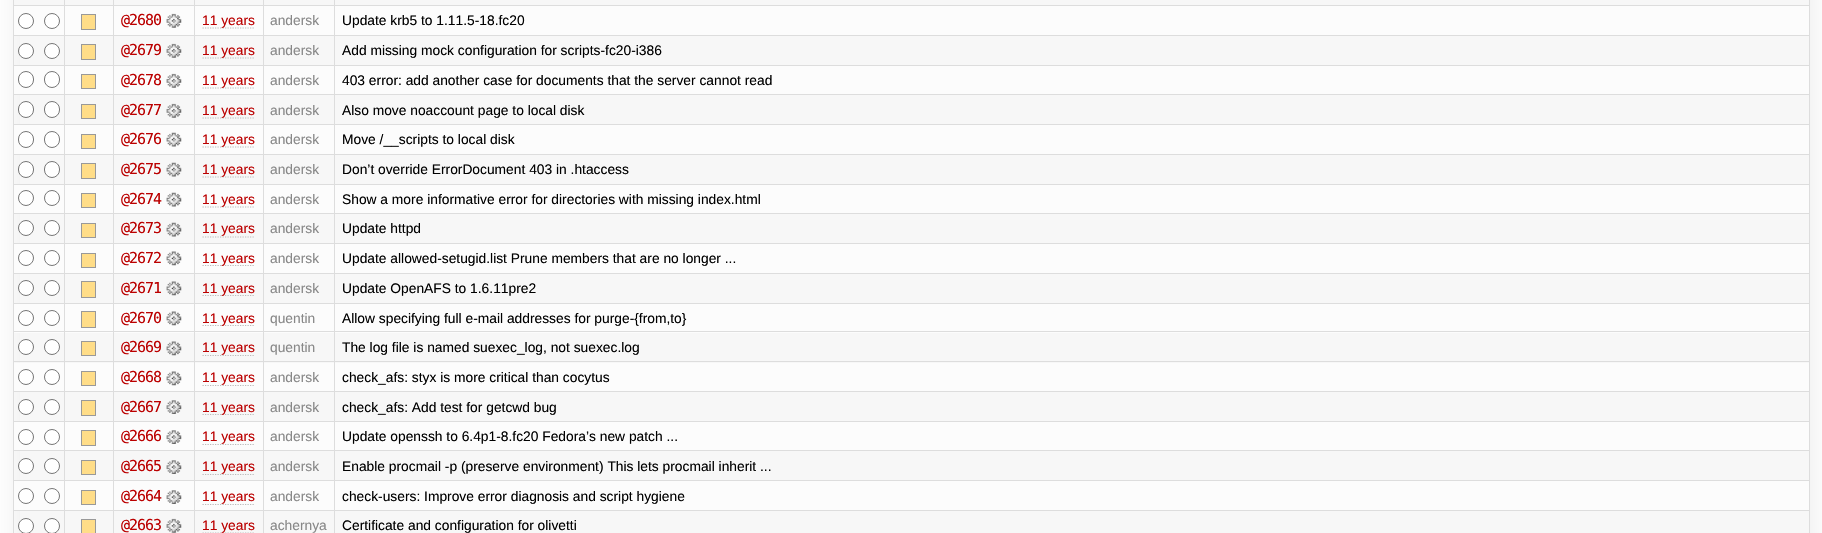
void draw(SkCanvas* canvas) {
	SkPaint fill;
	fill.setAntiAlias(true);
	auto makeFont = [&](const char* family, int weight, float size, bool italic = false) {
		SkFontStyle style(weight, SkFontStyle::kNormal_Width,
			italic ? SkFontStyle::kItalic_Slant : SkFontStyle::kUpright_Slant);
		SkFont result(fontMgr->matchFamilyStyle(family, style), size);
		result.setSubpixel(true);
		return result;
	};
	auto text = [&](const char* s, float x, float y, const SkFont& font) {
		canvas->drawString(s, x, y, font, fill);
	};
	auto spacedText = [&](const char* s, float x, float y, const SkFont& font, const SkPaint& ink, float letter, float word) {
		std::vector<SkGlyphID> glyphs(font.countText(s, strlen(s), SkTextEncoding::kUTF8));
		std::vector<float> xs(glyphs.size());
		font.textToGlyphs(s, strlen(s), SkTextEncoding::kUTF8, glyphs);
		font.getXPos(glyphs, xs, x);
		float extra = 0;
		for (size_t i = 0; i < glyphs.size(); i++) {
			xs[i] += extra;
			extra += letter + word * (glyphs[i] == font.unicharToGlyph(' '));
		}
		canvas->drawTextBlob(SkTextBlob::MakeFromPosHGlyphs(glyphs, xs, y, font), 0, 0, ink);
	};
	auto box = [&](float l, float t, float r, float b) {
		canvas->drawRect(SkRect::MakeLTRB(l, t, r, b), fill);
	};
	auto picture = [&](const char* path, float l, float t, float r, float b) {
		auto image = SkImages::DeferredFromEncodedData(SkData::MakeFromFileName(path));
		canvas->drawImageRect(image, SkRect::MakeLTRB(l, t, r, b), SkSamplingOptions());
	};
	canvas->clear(0xFFFFFFFF);
	fill.setColor(0xFFEEEEEE);
	fill.setMaskFilter(SkMaskFilter::MakeBlur(kNormal_SkBlurStyle, 12));
	canvas->drawRect(SkRect::MakeLTRB(16, -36, 1814, 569), fill);
	fill.setMaskFilter(nullptr);
	fill.setColor(0xFFF7F7F7);
	box(14, 0, 1810, 5);
	fill.setStyle(SkPaint::kStroke_Style);
	fill.setStrokeWidth(1.2f);
	fill.setColor(0xFFBBBBBB);
	fill.setPathEffect(SkDashPathEffect::Make({{1.25f, 1.25f}}, 0));
	canvas->drawPath(SkPathBuilder().moveTo(202.5f, -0.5f).lineTo(255, -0.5f).detach(), fill);
	fill.setPathEffect(nullptr);
	fill.setStyle(SkPaint::kFill_Style);
	fill.setColor(0xFFFCFCFC);
	box(14, 6, 1809, 35);
	fill.setColor(0xFFDDDDDD);
	box(13, 5, 1810, 6);
	fill.setColor(0xFFFFFFFF);
	canvas->drawCircle(26, 21, 7.5f, fill);
	fill.setStyle(SkPaint::kStroke_Style);
	fill.setStrokeWidth(1);
	fill.setColor(0xFF767676);
	canvas->drawCircle(26, 21, 7.5f, fill);
	fill.setStyle(SkPaint::kFill_Style);
	fill.setColor(0xFFFFFFFF);
	canvas->drawCircle(52, 21, 7.5f, fill);
	fill.setStyle(SkPaint::kStroke_Style);
	fill.setColor(0xFF767676);
	canvas->drawCircle(52, 21, 7.5f, fill);
	fill.setStyle(SkPaint::kFill_Style);
	fill.setColor(0xFFFFDD88);
	canvas->drawRect(SkRect::MakeLTRB(81.5f, 14.5f, 95.5f, 29.5f), fill);
	fill.setStyle(SkPaint::kStroke_Style);
	fill.setColor(0xFF999999);
	canvas->drawRect(SkRect::MakeLTRB(81.5f, 14.5f, 95.5f, 29.5f), fill);
	picture("image0.png", 166, 13, 182, 28);
	fill.setStrokeWidth(1.2f);
	fill.setColor(0xFFBBBBBB);
	fill.setPathEffect(SkDashPathEffect::Make({{1.25f, 1.25f}}, 0));
	canvas->drawPath(SkPathBuilder().moveTo(202.5f, 28).lineTo(255, 28).detach(), fill);
	fill.setPathEffect(nullptr);
	fill.setStyle(SkPaint::kFill_Style);
	fill.setColor(0xFFF7F7F7);
	box(20, 36, 1809, 65);
	fill.setColor(0xFFDDDDDD);
	box(13, 35, 1810, 36);
	fill.setColor(0xFFFFFFFF);
	canvas->drawCircle(26, 51, 7.5f, fill);
	fill.setStyle(SkPaint::kStroke_Style);
	fill.setStrokeWidth(1);
	fill.setColor(0xFF767676);
	canvas->drawCircle(26, 51, 7.5f, fill);
	fill.setStyle(SkPaint::kFill_Style);
	fill.setColor(0xFFFFFFFF);
	canvas->drawCircle(52, 51, 7.5f, fill);
	fill.setStyle(SkPaint::kStroke_Style);
	fill.setColor(0xFF767676);
	canvas->drawCircle(52, 51, 7.5f, fill);
	fill.setStyle(SkPaint::kFill_Style);
	fill.setColor(0xFFFFDD88);
	canvas->drawRect(SkRect::MakeLTRB(81.5f, 44.5f, 95.5f, 59.5f), fill);
	fill.setStyle(SkPaint::kStroke_Style);
	fill.setColor(0xFF999999);
	canvas->drawRect(SkRect::MakeLTRB(81.5f, 44.5f, 95.5f, 59.5f), fill);
	picture("image1.png", 166, 43, 182, 58);
	fill.setStrokeWidth(1.2f);
	fill.setColor(0xFFBBBBBB);
	fill.setPathEffect(SkDashPathEffect::Make({{1.25f, 1.25f}}, 0));
	canvas->drawPath(SkPathBuilder().moveTo(202.5f, 58).lineTo(255, 58).detach(), fill);
	fill.setPathEffect(nullptr);
	fill.setStyle(SkPaint::kFill_Style);
	fill.setColor(0xFFFCFCFC);
	box(14, 66, 1809, 94);
	fill.setColor(0xFFDDDDDD);
	box(13, 65, 1810, 66);
	fill.setColor(0xFFFFFFFF);
	canvas->drawRoundRect(SkRect::MakeLTRB(18.5f, 71.5f, 33.5f, 87.5f), 7.5f, 7.5f, fill);
	fill.setStyle(SkPaint::kStroke_Style);
	fill.setStrokeWidth(1);
	fill.setColor(0xFF767676);
	canvas->drawRoundRect(SkRect::MakeLTRB(18.5f, 71.5f, 33.5f, 87.5f), 7.5f, 7.5f, fill);
	fill.setStyle(SkPaint::kFill_Style);
	fill.setColor(0xFFFFFFFF);
	canvas->drawRoundRect(SkRect::MakeLTRB(44.5f, 71.5f, 59.5f, 87.5f), 7.5f, 7.5f, fill);
	fill.setStyle(SkPaint::kStroke_Style);
	fill.setColor(0xFF767676);
	canvas->drawRoundRect(SkRect::MakeLTRB(44.5f, 71.5f, 59.5f, 87.5f), 7.5f, 7.5f, fill);
	fill.setStyle(SkPaint::kFill_Style);
	fill.setColor(0xFFFFDD88);
	canvas->drawRect(SkRect::MakeLTRB(81.5f, 74.5f, 95.5f, 88.5f), fill);
	fill.setStyle(SkPaint::kStroke_Style);
	fill.setColor(0xFF999999);
	canvas->drawRect(SkRect::MakeLTRB(81.5f, 74.5f, 95.5f, 88.5f), fill);
	picture("image0.png", 166, 73, 182, 88);
	fill.setStrokeWidth(1.2f);
	fill.setColor(0xFFBBBBBB);
	fill.setPathEffect(SkDashPathEffect::Make({{1.25f, 1.25f}}, 0));
	canvas->drawPath(SkPathBuilder().moveTo(202.5f, 88).lineTo(255, 88).detach(), fill);
	fill.setPathEffect(nullptr);
	fill.setStyle(SkPaint::kFill_Style);
	fill.setColor(0xFFF7F7F7);
	box(20, 95, 1809, 124);
	fill.setColor(0xFFDDDDDD);
	box(13, 94, 1810, 95);
	fill.setColor(0xFFFFFFFF);
	canvas->drawRoundRect(SkRect::MakeLTRB(18.5f, 101.5f, 33.5f, 117.5f), 7.5f, 7.5f, fill);
	fill.setStyle(SkPaint::kStroke_Style);
	fill.setStrokeWidth(1);
	fill.setColor(0xFF767676);
	canvas->drawRoundRect(SkRect::MakeLTRB(18.5f, 101.5f, 33.5f, 117.5f), 7.5f, 7.5f, fill);
	fill.setStyle(SkPaint::kFill_Style);
	fill.setColor(0xFFFFFFFF);
	canvas->drawRoundRect(SkRect::MakeLTRB(44.5f, 101.5f, 59.5f, 117.5f), 7.5f, 7.5f, fill);
	fill.setStyle(SkPaint::kStroke_Style);
	fill.setColor(0xFF767676);
	canvas->drawRoundRect(SkRect::MakeLTRB(44.5f, 101.5f, 59.5f, 117.5f), 7.5f, 7.5f, fill);
	fill.setStyle(SkPaint::kFill_Style);
	fill.setColor(0xFFFFDD88);
	canvas->drawRect(SkRect::MakeLTRB(81.5f, 104.5f, 95.5f, 118.5f), fill);
	fill.setStyle(SkPaint::kStroke_Style);
	fill.setColor(0xFF999999);
	canvas->drawRect(SkRect::MakeLTRB(81.5f, 104.5f, 95.5f, 118.5f), fill);
	picture("image1.png", 166, 103, 182, 118);
	fill.setStrokeWidth(1.2f);
	fill.setColor(0xFFBBBBBB);
	fill.setPathEffect(SkDashPathEffect::Make({{1.25f, 1.25f}}, 0));
	canvas->drawPath(SkPathBuilder().moveTo(202.5f, 118).lineTo(255, 118).detach(), fill);
	fill.setPathEffect(nullptr);
	fill.setStyle(SkPaint::kFill_Style);
	fill.setColor(0xFFFCFCFC);
	box(14, 125, 1809, 154);
	fill.setColor(0xFFDDDDDD);
	box(13, 124, 1810, 125);
	fill.setColor(0xFFFFFFFF);
	canvas->drawRoundRect(SkRect::MakeLTRB(18.5f, 131.5f, 33.5f, 147.5f), 7.5f, 7.5f, fill);
	fill.setStyle(SkPaint::kStroke_Style);
	fill.setStrokeWidth(1);
	fill.setColor(0xFF767676);
	canvas->drawRoundRect(SkRect::MakeLTRB(18.5f, 131.5f, 33.5f, 147.5f), 7.5f, 7.5f, fill);
	fill.setStyle(SkPaint::kFill_Style);
	fill.setColor(0xFFFFFFFF);
	canvas->drawRoundRect(SkRect::MakeLTRB(44.5f, 131.5f, 59.5f, 147.5f), 7.5f, 7.5f, fill);
	fill.setStyle(SkPaint::kStroke_Style);
	fill.setColor(0xFF767676);
	canvas->drawRoundRect(SkRect::MakeLTRB(44.5f, 131.5f, 59.5f, 147.5f), 7.5f, 7.5f, fill);
	fill.setStyle(SkPaint::kFill_Style);
	fill.setColor(0xFFFFDD88);
	canvas->drawRect(SkRect::MakeLTRB(81.5f, 134.5f, 95.5f, 148.5f), fill);
	fill.setStyle(SkPaint::kStroke_Style);
	fill.setColor(0xFF999999);
	canvas->drawRect(SkRect::MakeLTRB(81.5f, 134.5f, 95.5f, 148.5f), fill);
	picture("image2.png", 166, 132, 182, 147);
	fill.setStrokeWidth(1.2f);
	fill.setColor(0xFFBBBBBB);
	fill.setPathEffect(SkDashPathEffect::Make({{1.25f, 1.25f}}, 0));
	canvas->drawPath(SkPathBuilder().moveTo(202.5f, 147).lineTo(255, 147).detach(), fill);
	fill.setPathEffect(nullptr);
	fill.setStyle(SkPaint::kFill_Style);
	fill.setColor(0xFFF7F7F7);
	box(20, 155, 1809, 184);
	fill.setColor(0xFFDDDDDD);
	box(13, 154, 1810, 155);
	fill.setColor(0xFFFFFFFF);
	canvas->drawRoundRect(SkRect::MakeLTRB(18.5f, 161.5f, 33.5f, 177.5f), 7.5f, 7.5f, fill);
	fill.setStyle(SkPaint::kStroke_Style);
	fill.setStrokeWidth(1);
	fill.setColor(0xFF767676);
	canvas->drawRoundRect(SkRect::MakeLTRB(18.5f, 161.5f, 33.5f, 177.5f), 7.5f, 7.5f, fill);
	fill.setStyle(SkPaint::kFill_Style);
	fill.setColor(0xFFFFFFFF);
	canvas->drawRoundRect(SkRect::MakeLTRB(44.5f, 161.5f, 59.5f, 177.5f), 7.5f, 7.5f, fill);
	fill.setStyle(SkPaint::kStroke_Style);
	fill.setColor(0xFF767676);
	canvas->drawRoundRect(SkRect::MakeLTRB(44.5f, 161.5f, 59.5f, 177.5f), 7.5f, 7.5f, fill);
	fill.setStyle(SkPaint::kFill_Style);
	fill.setColor(0xFFFFDD88);
	canvas->drawRect(SkRect::MakeLTRB(81.5f, 163.5f, 95.5f, 178.5f), fill);
	fill.setStyle(SkPaint::kStroke_Style);
	fill.setColor(0xFF999999);
	canvas->drawRect(SkRect::MakeLTRB(81.5f, 163.5f, 95.5f, 178.5f), fill);
	picture("image3.png", 166, 162, 182, 177);
	fill.setStrokeWidth(1.2f);
	fill.setColor(0xFFBBBBBB);
	fill.setPathEffect(SkDashPathEffect::Make({{1.25f, 1.25f}}, 0));
	canvas->drawPath(SkPathBuilder().moveTo(202.5f, 177).lineTo(255, 177).detach(), fill);
	fill.setPathEffect(nullptr);
	fill.setStyle(SkPaint::kFill_Style);
	fill.setColor(0xFFFCFCFC);
	box(14, 185, 1809, 213);
	fill.setColor(0xFFDDDDDD);
	box(13, 184, 1810, 185);
	fill.setColor(0xFFFFFFFF);
	canvas->drawCircle(26, 198, 7.5f, fill);
	fill.setStyle(SkPaint::kStroke_Style);
	fill.setStrokeWidth(1);
	fill.setColor(0xFF767676);
	canvas->drawCircle(26, 198, 7.5f, fill);
	fill.setStyle(SkPaint::kFill_Style);
	fill.setColor(0xFFFFFFFF);
	canvas->drawCircle(52, 198, 7.5f, fill);
	fill.setStyle(SkPaint::kStroke_Style);
	fill.setColor(0xFF767676);
	canvas->drawCircle(52, 198, 7.5f, fill);
	fill.setStyle(SkPaint::kFill_Style);
	fill.setColor(0xFFFFDD88);
	canvas->drawRect(SkRect::MakeLTRB(81.5f, 193.5f, 95.5f, 207.5f), fill);
	fill.setStyle(SkPaint::kStroke_Style);
	fill.setColor(0xFF999999);
	canvas->drawRect(SkRect::MakeLTRB(81.5f, 193.5f, 95.5f, 207.5f), fill);
	picture("image2.png", 166, 192, 182, 207);
	fill.setStrokeWidth(1.2f);
	fill.setColor(0xFFBBBBBB);
	fill.setPathEffect(SkDashPathEffect::Make({{1.25f, 1.25f}}, 0));
	canvas->drawPath(SkPathBuilder().moveTo(202.5f, 207).lineTo(255, 207).detach(), fill);
	fill.setPathEffect(nullptr);
	fill.setStyle(SkPaint::kFill_Style);
	fill.setColor(0xFFF7F7F7);
	box(20, 214, 1809, 243);
	fill.setColor(0xFFDDDDDD);
	box(13, 213, 1810, 214);
	fill.setColor(0xFFFFFFFF);
	canvas->drawCircle(26, 228, 7.5f, fill);
	fill.setStyle(SkPaint::kStroke_Style);
	fill.setStrokeWidth(1);
	fill.setColor(0xFF767676);
	canvas->drawCircle(26, 228, 7.5f, fill);
	fill.setStyle(SkPaint::kFill_Style);
	fill.setColor(0xFFFFFFFF);
	canvas->drawCircle(52, 228, 7.5f, fill);
	fill.setStyle(SkPaint::kStroke_Style);
	fill.setColor(0xFF767676);
	canvas->drawCircle(52, 228, 7.5f, fill);
	fill.setStyle(SkPaint::kFill_Style);
	fill.setColor(0xFFFFDD88);
	canvas->drawRect(SkRect::MakeLTRB(81.5f, 223.5f, 95.5f, 237.5f), fill);
	fill.setStyle(SkPaint::kStroke_Style);
	fill.setColor(0xFF999999);
	canvas->drawRect(SkRect::MakeLTRB(81.5f, 223.5f, 95.5f, 237.5f), fill);
	picture("image3.png", 166, 222, 182, 237);
	fill.setStrokeWidth(1.2f);
	fill.setColor(0xFFBBBBBB);
	fill.setPathEffect(SkDashPathEffect::Make({{1.25f, 1.25f}}, 0));
	canvas->drawPath(SkPathBuilder().moveTo(202.5f, 237).lineTo(255, 237).detach(), fill);
	fill.setPathEffect(nullptr);
	fill.setStyle(SkPaint::kFill_Style);
	fill.setColor(0xFFFCFCFC);
	box(14, 244, 1809, 273);
	fill.setColor(0xFFDDDDDD);
	box(13, 243, 1810, 244);
	fill.setColor(0xFFFFFFFF);
	canvas->drawCircle(26, 258, 7.5f, fill);
	fill.setStyle(SkPaint::kStroke_Style);
	fill.setStrokeWidth(1);
	fill.setColor(0xFF767676);
	canvas->drawCircle(26, 258, 7.5f, fill);
	fill.setStyle(SkPaint::kFill_Style);
	fill.setColor(0xFFFFFFFF);
	canvas->drawCircle(52, 258, 7.5f, fill);
	fill.setStyle(SkPaint::kStroke_Style);
	fill.setColor(0xFF767676);
	canvas->drawCircle(52, 258, 7.5f, fill);
	fill.setStyle(SkPaint::kFill_Style);
	fill.setColor(0xFFFFDD88);
	canvas->drawRect(SkRect::MakeLTRB(81.5f, 253.5f, 95.5f, 267.5f), fill);
	fill.setStyle(SkPaint::kStroke_Style);
	fill.setColor(0xFF999999);
	canvas->drawRect(SkRect::MakeLTRB(81.5f, 253.5f, 95.5f, 267.5f), fill);
	picture("image4.png", 166, 251, 182, 266);
	fill.setStrokeWidth(1.2f);
	fill.setColor(0xFFBBBBBB);
	fill.setPathEffect(SkDashPathEffect::Make({{1.25f, 1.25f}}, 0));
	canvas->drawPath(SkPathBuilder().moveTo(202.5f, 265.5f).lineTo(255, 265.5f).detach(), fill);
	fill.setPathEffect(nullptr);
	fill.setStyle(SkPaint::kFill_Style);
	fill.setColor(0xFFF7F7F7);
	box(20, 274, 1809, 303);
	fill.setColor(0xFFDDDDDD);
	box(13, 273, 1810, 274);
	fill.setColor(0xFFFFFFFF);
	canvas->drawCircle(26, 288, 7.5f, fill);
	fill.setStyle(SkPaint::kStroke_Style);
	fill.setStrokeWidth(1);
	fill.setColor(0xFF767676);
	canvas->drawCircle(26, 288, 7.5f, fill);
	fill.setStyle(SkPaint::kFill_Style);
	fill.setColor(0xFFFFFFFF);
	canvas->drawCircle(52, 288, 7.5f, fill);
	fill.setStyle(SkPaint::kStroke_Style);
	fill.setColor(0xFF767676);
	canvas->drawCircle(52, 288, 7.5f, fill);
	fill.setStyle(SkPaint::kFill_Style);
	fill.setColor(0xFFFFDD88);
	canvas->drawRect(SkRect::MakeLTRB(81.5f, 281.5f, 95.5f, 297.5f), fill);
	fill.setStyle(SkPaint::kStroke_Style);
	fill.setColor(0xFF999999);
	canvas->drawRect(SkRect::MakeLTRB(81.5f, 281.5f, 95.5f, 297.5f), fill);
	picture("image5.png", 166, 281, 182, 296);
	fill.setStrokeWidth(1.2f);
	fill.setColor(0xFFBBBBBB);
	fill.setPathEffect(SkDashPathEffect::Make({{1.25f, 1.25f}}, 0));
	canvas->drawPath(SkPathBuilder().moveTo(202.5f, 295.5f).lineTo(255, 295.5f).detach(), fill);
	fill.setPathEffect(nullptr);
	fill.setStyle(SkPaint::kFill_Style);
	fill.setColor(0xFFFCFCFC);
	box(14, 304, 1809, 333);
	fill.setColor(0xFFDDDDDD);
	box(13, 303, 1810, 304);
	fill.setColor(0xFFFFFFFF);
	canvas->drawCircle(26, 318, 7.5f, fill);
	fill.setStyle(SkPaint::kStroke_Style);
	fill.setStrokeWidth(1);
	fill.setColor(0xFF767676);
	canvas->drawCircle(26, 318, 7.5f, fill);
	fill.setStyle(SkPaint::kFill_Style);
	fill.setColor(0xFFFFFFFF);
	canvas->drawCircle(52, 318, 7.5f, fill);
	fill.setStyle(SkPaint::kStroke_Style);
	fill.setColor(0xFF767676);
	canvas->drawCircle(52, 318, 7.5f, fill);
	fill.setStyle(SkPaint::kFill_Style);
	fill.setColor(0xFFFFDD88);
	canvas->drawRect(SkRect::MakeLTRB(81.5f, 311.5f, 95.5f, 327.5f), fill);
	fill.setStyle(SkPaint::kStroke_Style);
	fill.setColor(0xFF999999);
	canvas->drawRect(SkRect::MakeLTRB(81.5f, 311.5f, 95.5f, 327.5f), fill);
	picture("image4.png", 166, 311, 182, 326);
	fill.setStrokeWidth(1.2f);
	fill.setColor(0xFFBBBBBB);
	fill.setPathEffect(SkDashPathEffect::Make({{1.25f, 1.25f}}, 0));
	canvas->drawPath(SkPathBuilder().moveTo(202.5f, 325.5f).lineTo(255, 325.5f).detach(), fill);
	fill.setPathEffect(nullptr);
	fill.setStyle(SkPaint::kFill_Style);
	fill.setColor(0xFFF7F7F7);
	box(20, 333, 1809, 363);
	fill.setColor(0xFFDDDDDD);
	box(13, 331, 1810, 332);
	fill.setColor(0xFFFFFFFF);
	canvas->drawCircle(26, 347, 7.5f, fill);
	fill.setStyle(SkPaint::kStroke_Style);
	fill.setStrokeWidth(1);
	fill.setColor(0xFF767676);
	canvas->drawCircle(26, 347, 7.5f, fill);
	fill.setStyle(SkPaint::kFill_Style);
	fill.setColor(0xFFFFFFFF);
	canvas->drawCircle(52, 347, 7.5f, fill);
	fill.setStyle(SkPaint::kStroke_Style);
	fill.setColor(0xFF767676);
	canvas->drawCircle(52, 347, 7.5f, fill);
	fill.setStyle(SkPaint::kFill_Style);
	fill.setColor(0xFFFFDD88);
	canvas->drawRect(SkRect::MakeLTRB(81.5f, 341.5f, 95.5f, 355.5f), fill);
	fill.setStyle(SkPaint::kStroke_Style);
	fill.setColor(0xFF999999);
	canvas->drawRect(SkRect::MakeLTRB(81.5f, 341.5f, 95.5f, 355.5f), fill);
	picture("image5.png", 166, 341, 182, 356);
	fill.setStrokeWidth(1.2f);
	fill.setColor(0xFFBBBBBB);
	fill.setPathEffect(SkDashPathEffect::Make({{1.25f, 1.25f}}, 0));
	canvas->drawPath(SkPathBuilder().moveTo(202.5f, 355.5f).lineTo(255, 355.5f).detach(), fill);
	fill.setPathEffect(nullptr);
	fill.setStyle(SkPaint::kFill_Style);
	fill.setColor(0xFFFCFCFC);
	box(14, 363, 1809, 391);
	fill.setColor(0xFFDDDDDD);
	box(13, 361, 1810, 362);
	fill.setColor(0xFFFFFFFF);
	canvas->drawCircle(26, 377, 7.5f, fill);
	fill.setStyle(SkPaint::kStroke_Style);
	fill.setStrokeWidth(1);
	fill.setColor(0xFF767676);
	canvas->drawCircle(26, 377, 7.5f, fill);
	fill.setStyle(SkPaint::kFill_Style);
	fill.setColor(0xFFFFFFFF);
	canvas->drawCircle(52, 377, 7.5f, fill);
	fill.setStyle(SkPaint::kStroke_Style);
	fill.setColor(0xFF767676);
	canvas->drawCircle(52, 377, 7.5f, fill);
	fill.setStyle(SkPaint::kFill_Style);
	fill.setColor(0xFFFFDD88);
	canvas->drawRect(SkRect::MakeLTRB(81.5f, 371.5f, 95.5f, 385.5f), fill);
	fill.setStyle(SkPaint::kStroke_Style);
	fill.setColor(0xFF999999);
	canvas->drawRect(SkRect::MakeLTRB(81.5f, 371.5f, 95.5f, 385.5f), fill);
	picture("image4.png", 166, 371, 182, 386);
	fill.setStrokeWidth(1.2f);
	fill.setColor(0xFFBBBBBB);
	fill.setPathEffect(SkDashPathEffect::Make({{1.25f, 1.25f}}, 0));
	canvas->drawPath(SkPathBuilder().moveTo(202.5f, 385.5f).lineTo(255, 385.5f).detach(), fill);
	fill.setPathEffect(nullptr);
	fill.setStyle(SkPaint::kFill_Style);
	fill.setColor(0xFFF7F7F7);
	box(20, 392, 1809, 421);
	fill.setColor(0xFFDDDDDD);
	box(13, 391, 1810, 392);
	fill.setColor(0xFFFFFFFF);
	canvas->drawCircle(26, 407, 7.5f, fill);
	fill.setStyle(SkPaint::kStroke_Style);
	fill.setStrokeWidth(1);
	fill.setColor(0xFF767676);
	canvas->drawCircle(26, 407, 7.5f, fill);
	fill.setStyle(SkPaint::kFill_Style);
	fill.setColor(0xFFFFFFFF);
	canvas->drawCircle(52, 407, 7.5f, fill);
	fill.setStyle(SkPaint::kStroke_Style);
	fill.setColor(0xFF767676);
	canvas->drawCircle(52, 407, 7.5f, fill);
	fill.setStyle(SkPaint::kFill_Style);
	fill.setColor(0xFFFFDD88);
	canvas->drawRect(SkRect::MakeLTRB(81.5f, 400.5f, 95.5f, 415.5f), fill);
	fill.setStyle(SkPaint::kStroke_Style);
	fill.setColor(0xFF999999);
	canvas->drawRect(SkRect::MakeLTRB(81.5f, 400.5f, 95.5f, 415.5f), fill);
	picture("image6.png", 166, 400, 182, 414);
	fill.setStrokeWidth(1.2f);
	fill.setColor(0xFFBBBBBB);
	fill.setPathEffect(SkDashPathEffect::Make({{1.25f, 1.25f}}, 0));
	canvas->drawPath(SkPathBuilder().moveTo(202.5f, 414.5f).lineTo(255, 414.5f).detach(), fill);
	fill.setPathEffect(nullptr);
	fill.setStyle(SkPaint::kFill_Style);
	fill.setColor(0xFFFCFCFC);
	box(14, 422, 1809, 450);
	fill.setColor(0xFFDDDDDD);
	box(13, 421, 1810, 422);
	fill.setColor(0xFFFFFFFF);
	canvas->drawCircle(26, 437, 7.5f, fill);
	fill.setStyle(SkPaint::kStroke_Style);
	fill.setStrokeWidth(1);
	fill.setColor(0xFF767676);
	canvas->drawCircle(26, 437, 7.5f, fill);
	fill.setStyle(SkPaint::kFill_Style);
	fill.setColor(0xFFFFFFFF);
	canvas->drawCircle(52, 437, 7.5f, fill);
	fill.setStyle(SkPaint::kStroke_Style);
	fill.setColor(0xFF767676);
	canvas->drawCircle(52, 437, 7.5f, fill);
	fill.setStyle(SkPaint::kFill_Style);
	fill.setColor(0xFFFFDD88);
	canvas->drawRect(SkRect::MakeLTRB(81.5f, 430.5f, 95.5f, 445.5f), fill);
	fill.setStyle(SkPaint::kStroke_Style);
	fill.setColor(0xFF999999);
	canvas->drawRect(SkRect::MakeLTRB(81.5f, 430.5f, 95.5f, 445.5f), fill);
	picture("image7.png", 166, 430, 182, 444);
	fill.setStrokeWidth(1.2f);
	fill.setColor(0xFFBBBBBB);
	fill.setPathEffect(SkDashPathEffect::Make({{1.25f, 1.25f}}, 0));
	canvas->drawPath(SkPathBuilder().moveTo(202.5f, 444.5f).lineTo(255, 444.5f).detach(), fill);
	fill.setPathEffect(nullptr);
	fill.setStyle(SkPaint::kFill_Style);
	fill.setColor(0xFFF7F7F7);
	box(20, 451, 1809, 480);
	fill.setColor(0xFFDDDDDD);
	box(13, 450, 1810, 451);
	fill.setColor(0xFFFFFFFF);
	canvas->drawCircle(26, 466, 7.5f, fill);
	fill.setStyle(SkPaint::kStroke_Style);
	fill.setStrokeWidth(1);
	fill.setColor(0xFF767676);
	canvas->drawCircle(26, 466, 7.5f, fill);
	fill.setStyle(SkPaint::kFill_Style);
	fill.setColor(0xFFFFFFFF);
	canvas->drawCircle(52, 466, 7.5f, fill);
	fill.setStyle(SkPaint::kStroke_Style);
	fill.setColor(0xFF767676);
	canvas->drawCircle(52, 466, 7.5f, fill);
	fill.setStyle(SkPaint::kFill_Style);
	fill.setColor(0xFFFFDD88);
	canvas->drawRect(SkRect::MakeLTRB(81.5f, 460.5f, 95.5f, 474.5f), fill);
	fill.setStyle(SkPaint::kStroke_Style);
	fill.setColor(0xFF999999);
	canvas->drawRect(SkRect::MakeLTRB(81.5f, 460.5f, 95.5f, 474.5f), fill);
	picture("image6.png", 166, 460, 182, 474);
	fill.setStrokeWidth(1.2f);
	fill.setColor(0xFFBBBBBB);
	fill.setPathEffect(SkDashPathEffect::Make({{1.25f, 1.25f}}, 0));
	canvas->drawPath(SkPathBuilder().moveTo(202.5f, 474.5f).lineTo(255, 474.5f).detach(), fill);
	fill.setPathEffect(nullptr);
	fill.setStyle(SkPaint::kFill_Style);
	fill.setColor(0xFFFCFCFC);
	box(14, 481, 1809, 510);
	fill.setColor(0xFFDDDDDD);
	box(13, 480, 1810, 481);
	fill.setColor(0xFFFFFFFF);
	canvas->drawCircle(26, 496, 7.5f, fill);
	fill.setStyle(SkPaint::kStroke_Style);
	fill.setStrokeWidth(1);
	fill.setColor(0xFF767676);
	canvas->drawCircle(26, 496, 7.5f, fill);
	fill.setStyle(SkPaint::kFill_Style);
	fill.setColor(0xFFFFFFFF);
	canvas->drawCircle(52, 496, 7.5f, fill);
	fill.setStyle(SkPaint::kStroke_Style);
	fill.setColor(0xFF767676);
	canvas->drawCircle(52, 496, 7.5f, fill);
	fill.setStyle(SkPaint::kFill_Style);
	fill.setColor(0xFFFFDD88);
	canvas->drawRect(SkRect::MakeLTRB(81.5f, 490.5f, 95.5f, 504.5f), fill);
	fill.setStyle(SkPaint::kStroke_Style);
	fill.setColor(0xFF999999);
	canvas->drawRect(SkRect::MakeLTRB(81.5f, 490.5f, 95.5f, 504.5f), fill);
	picture("image7.png", 166, 490, 182, 504);
	fill.setStrokeWidth(1.2f);
	fill.setColor(0xFFBBBBBB);
	fill.setPathEffect(SkDashPathEffect::Make({{1.25f, 1.25f}}, 0));
	canvas->drawPath(SkPathBuilder().moveTo(202.5f, 504.5f).lineTo(255, 504.5f).detach(), fill);
	fill.setPathEffect(nullptr);
	fill.setStyle(SkPaint::kFill_Style);
	fill.setColor(0xFFF7F7F7);
	box(20, 511, 1809, 533);
	fill.setColor(0xFFDDDDDD);
	box(13, 510, 1810, 511);
	box(13, 0, 14, 533);
	fill.setColor(0xFFFFFFFF);
	canvas->drawCircle(26, 526, 7.5f, fill);
	fill.setStyle(SkPaint::kStroke_Style);
	fill.setStrokeWidth(1);
	fill.setColor(0xFF767676);
	canvas->drawCircle(26, 526, 7.5f, fill);
	fill.setStyle(SkPaint::kFill_Style);
	fill.setColor(0xFFFFFFFF);
	canvas->drawCircle(52, 526, 7.5f, fill);
	fill.setStyle(SkPaint::kStroke_Style);
	fill.setColor(0xFF767676);
	canvas->drawCircle(52, 526, 7.5f, fill);
	fill.setStyle(SkPaint::kFill_Style);
	fill.setColor(0xFFDDDDDD);
	box(64, 0, 65, 533);
	fill.setColor(0xFFFFDD88);
	canvas->drawRect(SkRect::MakeLTRB(81.5f, 519.5f, 95.5f, 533.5f), fill);
	fill.setStyle(SkPaint::kStroke_Style);
	fill.setColor(0xFF999999);
	canvas->drawRect(SkRect::MakeLTRB(81.5f, 519.5f, 95.5f, 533.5f), fill);
	fill.setStyle(SkPaint::kFill_Style);
	fill.setColor(0xFFDDDDDD);
	box(113, 0, 114, 533);
	picture("image1.png", 166, 518, 182, 533);
	box(194, 0, 195, 533);
	fill.setStyle(SkPaint::kStroke_Style);
	fill.setStrokeWidth(1.2f);
	fill.setColor(0xFFBBBBBB);
	fill.setPathEffect(SkDashPathEffect::Make({{1.25f, 1.25f}}, 0));
	canvas->drawPath(SkPathBuilder().moveTo(202.5f, 533).lineTo(255, 533).detach(), fill);
	fill.setPathEffect(nullptr);
	fill.setStyle(SkPaint::kFill_Style);
	fill.setColor(0xFFDDDDDD);
	box(263, 0, 264, 533);
	box(1809, 0, 1810, 533);
	box(334, 0, 335, 533);
	auto font1 = makeFont("DejaVu Sans Mono", 400, 15);
	fill.setColor(0xFFBB0000);
	spacedText("@2680", 121, 25, font1, fill, -1, 0);
	auto font2 = makeFont("Liberation Sans", 400, 13.8f);
	text("11 years", 202, 25, font2);
	fill.setColor(0xFF888888);
	text("andersk", 270, 25, font2);
	fill.setColor(0xFF000000);
	text("Update krb5 to 1.11.5-18.fc20", 342, 25, font2);
	fill.setColor(0xFFBB0000);
	spacedText("@2679", 121, 55, font1, fill, -1, 0);
	text("11 years", 202, 55, font2);
	fill.setColor(0xFF888888);
	text("andersk", 270, 55, font2);
	fill.setColor(0xFF000000);
	text("Add missing mock configuration for scripts-fc20-i386", 342, 55, font2);
	fill.setColor(0xFFBB0000);
	spacedText("@2678", 121, 85, font1, fill, -1, 0);
	text("11 years", 202, 85, font2);
	fill.setColor(0xFF888888);
	text("andersk", 270, 85, font2);
	fill.setColor(0xFF000000);
	text("403 error: add another case for documents that the server cannot read", 342, 85, font2);
	fill.setColor(0xFFBB0000);
	spacedText("@2677", 121, 115, font1, fill, -1, 0);
	text("11 years", 202, 115, font2);
	fill.setColor(0xFF888888);
	text("andersk", 270, 115, font2);
	fill.setColor(0xFF000000);
	text("Also move noaccount page to local disk", 342, 115, font2);
	fill.setColor(0xFFBB0000);
	spacedText("@2676", 121, 144, font1, fill, -1, 0);
	text("11 years", 202, 144, font2);
	fill.setColor(0xFF888888);
	text("andersk", 270, 144, font2);
	fill.setColor(0xFF000000);
	text("Move /__scripts to local disk", 342, 144, font2);
	fill.setColor(0xFFBB0000);
	spacedText("@2675", 121, 174, font1, fill, -1, 0);
	text("11 years", 202, 174, font2);
	fill.setColor(0xFF888888);
	text("andersk", 270, 174, font2);
	fill.setColor(0xFF000000);
	text("Don’t override ErrorDocument 403 in .htaccess", 342, 174, font2);
	fill.setColor(0xFFBB0000);
	spacedText("@2674", 121, 204, font1, fill, -1, 0);
	text("11 years", 202, 204, font2);
	fill.setColor(0xFF888888);
	text("andersk", 270, 204, font2);
	fill.setColor(0xFF000000);
	text("Show a more informative error for directories with missing index.html", 342, 204, font2);
	fill.setColor(0xFFBB0000);
	spacedText("@2673", 121, 233, font1, fill, -1, 0);
	text("11 years", 202, 233, font2);
	fill.setColor(0xFF888888);
	text("andersk", 270, 233, font2);
	fill.setColor(0xFF000000);
	text("Update httpd", 342, 233, font2);
	fill.setColor(0xFFBB0000);
	spacedText("@2672", 121, 263, font1, fill, -1, 0);
	text("11 years", 202, 263, font2);
	fill.setColor(0xFF888888);
	text("andersk", 270, 263, font2);
	fill.setColor(0xFF000000);
	text("Update allowed-setugid.list Prune members that are no longer ...", 342, 263, font2);
	fill.setColor(0xFFBB0000);
	spacedText("@2671", 121, 293, font1, fill, -1, 0);
	text("11 years", 202, 293, font2);
	fill.setColor(0xFF888888);
	text("andersk", 270, 293, font2);
	fill.setColor(0xFF000000);
	text("Update OpenAFS to 1.6.11pre2", 342, 293, font2);
	fill.setColor(0xFFBB0000);
	spacedText("@2670", 121, 323, font1, fill, -1, 0);
	text("11 years", 202, 323, font2);
	fill.setColor(0xFF888888);
	text("quentin", 270, 323, font2);
	fill.setColor(0xFF000000);
	text("Allow specifying full e-mail addresses for purge-{from,to}", 342, 323, font2);
	fill.setColor(0xFFBB0000);
	spacedText("@2669", 121, 352, font1, fill, -1, 0);
	text("11 years", 202, 352, font2);
	fill.setColor(0xFF888888);
	text("quentin", 270, 352, font2);
	fill.setColor(0xFF000000);
	text("The log file is named suexec_log, not suexec.log", 342, 352, font2);
	fill.setColor(0xFFBB0000);
	spacedText("@2668", 121, 382, font1, fill, -1, 0);
	text("11 years", 202, 382, font2);
	fill.setColor(0xFF888888);
	text("andersk", 270, 382, font2);
	fill.setColor(0xFF000000);
	text("check_afs: styx is more critical than cocytus", 342, 382, font2);
	fill.setColor(0xFFBB0000);
	spacedText("@2667", 121, 412, font1, fill, -1, 0);
	text("11 years", 202, 412, font2);
	fill.setColor(0xFF888888);
	text("andersk", 270, 412, font2);
	fill.setColor(0xFF000000);
	text("check_afs: Add test for getcwd bug", 342, 412, font2);
	fill.setColor(0xFFBB0000);
	spacedText("@2666", 121, 441, font1, fill, -1, 0);
	text("11 years", 202, 441, font2);
	fill.setColor(0xFF888888);
	text("andersk", 270, 441, font2);
	fill.setColor(0xFF000000);
	text("Update openssh to 6.4p1-8.fc20 Fedora’s new patch ...", 342, 441, font2);
	fill.setColor(0xFFBB0000);
	spacedText("@2665", 121, 471, font1, fill, -1, 0);
	text("11 years", 202, 471, font2);
	fill.setColor(0xFF888888);
	text("andersk", 270, 471, font2);
	fill.setColor(0xFF000000);
	text("Enable procmail -p (preserve environment) This lets procmail inherit ...", 342, 471, font2);
	fill.setColor(0xFFBB0000);
	spacedText("@2664", 121, 501, font1, fill, -1, 0);
	text("11 years", 202, 501, font2);
	fill.setColor(0xFF888888);
	text("andersk", 270, 501, font2);
	fill.setColor(0xFF000000);
	text("check-users: Improve error diagnosis and script hygiene", 342, 501, font2);
	fill.setColor(0xFFBB0000);
	spacedText("@2663", 121, 530, font1, fill, -1, 0);
	text("11 years", 202, 530, font2);
	fill.setColor(0xFF888888);
	text("achernya", 270, 530, font2);
	fill.setColor(0xFF000000);
	text("Certificate and configuration for olivetti", 342, 530, font2);
}
